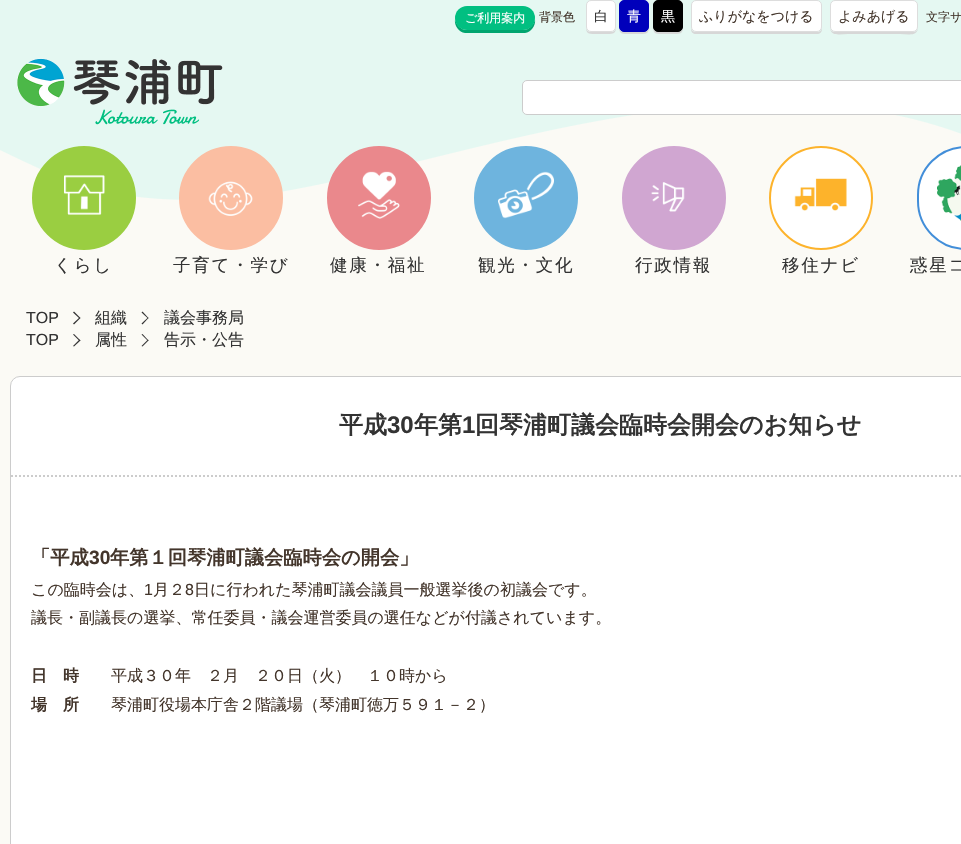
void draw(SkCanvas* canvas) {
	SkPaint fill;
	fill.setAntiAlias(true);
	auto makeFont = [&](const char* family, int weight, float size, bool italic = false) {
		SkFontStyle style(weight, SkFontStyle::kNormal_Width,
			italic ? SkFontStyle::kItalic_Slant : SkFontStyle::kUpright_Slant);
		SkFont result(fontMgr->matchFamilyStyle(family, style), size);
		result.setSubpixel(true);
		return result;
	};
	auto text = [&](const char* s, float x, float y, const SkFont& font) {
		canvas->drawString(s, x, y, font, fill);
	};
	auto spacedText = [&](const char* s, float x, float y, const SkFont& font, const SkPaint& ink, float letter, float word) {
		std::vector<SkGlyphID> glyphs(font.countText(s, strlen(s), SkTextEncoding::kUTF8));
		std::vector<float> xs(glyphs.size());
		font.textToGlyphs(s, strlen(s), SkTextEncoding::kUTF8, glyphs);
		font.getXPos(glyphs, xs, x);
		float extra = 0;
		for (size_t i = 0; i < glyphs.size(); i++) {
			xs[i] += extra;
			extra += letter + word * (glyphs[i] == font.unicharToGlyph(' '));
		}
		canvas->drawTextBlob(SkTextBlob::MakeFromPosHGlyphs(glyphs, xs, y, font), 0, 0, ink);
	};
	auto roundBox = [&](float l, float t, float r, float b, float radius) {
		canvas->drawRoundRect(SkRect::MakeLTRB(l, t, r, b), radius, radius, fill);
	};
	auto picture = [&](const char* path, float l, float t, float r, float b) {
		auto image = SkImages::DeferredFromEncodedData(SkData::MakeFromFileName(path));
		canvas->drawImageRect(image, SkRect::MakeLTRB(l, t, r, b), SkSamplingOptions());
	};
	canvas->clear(0xFFFBFAF5);
	picture("image0.png", 0, 0, 961, 200);
	fill.setColor(0xFF01A56F);
	canvas->drawPath(SkPathBuilder().moveTo(455, 19).cubicTo(454, 26, 459, 32, 465, 33).lineTo(525, 33).cubicTo(531, 32, 536, 26, 535, 19).cubicTo(534, 25, 529, 30, 523, 30).lineTo(467, 30).cubicTo(461, 30, 456, 25, 455, 19).close().detach(), fill);
	fill.setColor(0xFF01BF81);
	roundBox(455, 6, 535, 30, 12);
	fill.setColor(0xFFD7D7D7);
	canvas->drawPath(SkPathBuilder().moveTo(586, 27).cubicTo(586, 33.5f, 588.5f, 34, 594.5f, 34).lineTo(607.5f, 34).cubicTo(613.5f, 34, 616, 33.5f, 616, 27).cubicTo(616, 30, 614, 32, 611, 32).lineTo(591, 32).cubicTo(588, 32, 586, 30, 586, 27).close().detach(), fill);
	fill.setColor(0xFFFFFFFF);
	canvas->drawRoundRect(SkRect::MakeLTRB(586.5f, 0.5f, 615.5f, 31.5f), 4.5f, 4.5f, fill);
	fill.setStyle(SkPaint::kStroke_Style);
	fill.setStrokeWidth(1);
	fill.setColor(0xFFDDDDDD);
	canvas->drawRoundRect(SkRect::MakeLTRB(586.5f, 0.5f, 615.5f, 31.5f), 4.5f, 4.5f, fill);
	fill.setStyle(SkPaint::kFill_Style);
	fill.setColor(0xFFD7D7D7);
	canvas->drawPath(SkPathBuilder().moveTo(619, 27).cubicTo(619, 33.5f, 621.5f, 34, 627.5f, 34).lineTo(640.5f, 34).cubicTo(646.5f, 34, 649, 33.5f, 649, 27).cubicTo(649, 30, 647, 32, 644, 32).lineTo(624, 32).cubicTo(621, 32, 619, 30, 619, 27).close().detach(), fill);
	fill.setColor(0xFF0000BB);
	canvas->drawRoundRect(SkRect::MakeLTRB(619.5f, 0.5f, 648.5f, 31.5f), 4.5f, 4.5f, fill);
	fill.setStyle(SkPaint::kStroke_Style);
	canvas->drawRoundRect(SkRect::MakeLTRB(619.5f, 0.5f, 648.5f, 31.5f), 4.5f, 4.5f, fill);
	fill.setStyle(SkPaint::kFill_Style);
	fill.setColor(0xFFD7D7D7);
	canvas->drawPath(SkPathBuilder().moveTo(653, 27).cubicTo(653, 33.5f, 655.5f, 34, 661.5f, 34).lineTo(674.5f, 34).cubicTo(680.5f, 34, 683, 33.5f, 683, 27).cubicTo(683, 30, 681, 32, 678, 32).lineTo(658, 32).cubicTo(655, 32, 653, 30, 653, 27).close().detach(), fill);
	fill.setColor(0xFF000000);
	canvas->drawRoundRect(SkRect::MakeLTRB(653.5f, 0.5f, 682.5f, 31.5f), 4.5f, 4.5f, fill);
	fill.setStyle(SkPaint::kStroke_Style);
	canvas->drawRoundRect(SkRect::MakeLTRB(653.5f, 0.5f, 682.5f, 31.5f), 4.5f, 4.5f, fill);
	fill.setStyle(SkPaint::kFill_Style);
	fill.setColor(0xFFD7D7D7);
	canvas->drawPath(SkPathBuilder().moveTo(691, 27).lineTo(691, 29).cubicTo(691, 32, 693, 34, 696, 34).lineTo(817, 34).cubicTo(820, 34, 822, 32, 822, 29).lineTo(822, 27).cubicTo(822, 30, 820, 32, 817, 32).lineTo(696, 32).cubicTo(693, 32, 691, 30, 691, 27).close().detach(), fill);
	fill.setColor(0xFFFFFFFF);
	canvas->drawRoundRect(SkRect::MakeLTRB(691.5f, 0.5f, 821.5f, 31.5f), 4.5f, 4.5f, fill);
	fill.setStyle(SkPaint::kStroke_Style);
	fill.setColor(0xFFDDDDDD);
	canvas->drawRoundRect(SkRect::MakeLTRB(691.5f, 0.5f, 821.5f, 31.5f), 4.5f, 4.5f, fill);
	fill.setStyle(SkPaint::kFill_Style);
	fill.setColor(0xFFD7D7D7);
	canvas->drawPath(SkPathBuilder().moveTo(830, 27).cubicTo(830, 37, 840, 34, 848, 34).lineTo(900, 34).cubicTo(908, 34, 918, 37, 918, 27).cubicTo(918, 30, 916, 32, 913, 32).lineTo(835, 32).cubicTo(832, 32, 830, 30, 830, 27).close().detach(), fill);
	fill.setColor(0xFFFFFFFF);
	canvas->drawRoundRect(SkRect::MakeLTRB(830.5f, 0.5f, 917.5f, 31.5f), 4.5f, 4.5f, fill);
	fill.setStyle(SkPaint::kStroke_Style);
	fill.setColor(0xFFDDDDDD);
	canvas->drawRoundRect(SkRect::MakeLTRB(830.5f, 0.5f, 917.5f, 31.5f), 4.5f, 4.5f, fill);
	picture("image1.png", 17, 58, 223, 125);
	fill.setStyle(SkPaint::kFill_Style);
	fill.setColor(0xFFFFFFFF);
	canvas->drawRoundRect(SkRect::MakeLTRB(522.5f, 80.5f, 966.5f, 114.5f), 4.5f, 4.5f, fill);
	fill.setStyle(SkPaint::kStroke_Style);
	fill.setColor(0xFFCCCCCC);
	canvas->drawRoundRect(SkRect::MakeLTRB(522.5f, 80.5f, 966.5f, 114.5f), 4.5f, 4.5f, fill);
	fill.setStyle(SkPaint::kFill_Style);
	fill.setColor(0xFF9ACE41);
	canvas->drawCircle(84, 198, 51, fill);
	fill.setStyle(SkPaint::kStroke_Style);
	fill.setStrokeWidth(2);
	canvas->drawCircle(84, 198, 51, fill);
	picture("image2.png", 64, 175, 105, 215);
	fill.setStyle(SkPaint::kFill_Style);
	fill.setColor(0xFFFBBEA2);
	canvas->drawCircle(231, 198, 51, fill);
	fill.setStyle(SkPaint::kStroke_Style);
	canvas->drawCircle(231, 198, 51, fill);
	picture("image3.png", 208, 181, 253, 216);
	fill.setStyle(SkPaint::kFill_Style);
	fill.setColor(0xFFEA888C);
	canvas->drawCircle(379, 198, 51, fill);
	fill.setStyle(SkPaint::kStroke_Style);
	canvas->drawCircle(379, 198, 51, fill);
	picture("image4.png", 358, 171, 400, 219);
	fill.setStyle(SkPaint::kFill_Style);
	fill.setColor(0xFF6EB4DE);
	canvas->drawCircle(526, 198, 51, fill);
	fill.setStyle(SkPaint::kStroke_Style);
	canvas->drawCircle(526, 198, 51, fill);
	picture("image5.png", 498, 171, 554, 219);
	fill.setStyle(SkPaint::kFill_Style);
	fill.setColor(0xFFD0A6D1);
	canvas->drawCircle(674, 198, 51, fill);
	fill.setStyle(SkPaint::kStroke_Style);
	canvas->drawCircle(674, 198, 51, fill);
	picture("image6.png", 651, 182, 685, 212);
	fill.setStyle(SkPaint::kFill_Style);
	fill.setColor(0xFFFFFFFF);
	canvas->drawCircle(821, 198, 51, fill);
	fill.setStyle(SkPaint::kStroke_Style);
	fill.setColor(0xFFFDB32B);
	canvas->drawCircle(821, 198, 51, fill);
	picture("image7.png", 794, 178, 847, 211);
	fill.setStyle(SkPaint::kFill_Style);
	fill.setColor(0xFFFFFFFF);
	canvas->drawRoundRect(SkRect::MakeLTRB(918, 147, 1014, 249), 51, 51, fill);
	fill.setStyle(SkPaint::kStroke_Style);
	fill.setColor(0xFF428ED9);
	canvas->drawRoundRect(SkRect::MakeLTRB(918, 147, 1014, 249), 51, 51, fill);
	picture("image8.png", 937, 165, 961, 221);
	fill.setStyle(SkPaint::kFill_Style);
	fill.setColor(0xFF333333);
	canvas->drawPath(SkPathBuilder().moveTo(74, 311.5f).lineTo(80.5f, 318).lineTo(79.5f, 318.5f).lineTo(73, 312.5f).close().detach(), fill);
	canvas->drawPath(SkPathBuilder().moveTo(79.5f, 317.5f).lineTo(80.5f, 318).lineTo(74, 324.5f).lineTo(73, 323.5f).close().detach(), fill);
	canvas->drawPath(SkPathBuilder().moveTo(142.5f, 311.5f).lineTo(148.5f, 318).lineTo(148, 318.5f).lineTo(141.5f, 312.5f).close().detach(), fill);
	canvas->drawPath(SkPathBuilder().moveTo(148, 317.5f).lineTo(148.5f, 318).lineTo(142.5f, 324.5f).lineTo(141.5f, 323.5f).close().detach(), fill);
	canvas->drawPath(SkPathBuilder().moveTo(74, 334).lineTo(80.5f, 340.5f).lineTo(79.5f, 341).lineTo(73, 334.5f).close().detach(), fill);
	canvas->drawPath(SkPathBuilder().moveTo(79.5f, 339.5f).lineTo(80.5f, 340.5f).lineTo(74, 346.5f).lineTo(73, 346).close().detach(), fill);
	canvas->drawPath(SkPathBuilder().moveTo(142.5f, 334).lineTo(148.5f, 340.5f).lineTo(148, 341).lineTo(141.5f, 334.5f).close().detach(), fill);
	canvas->drawPath(SkPathBuilder().moveTo(148, 339.5f).lineTo(148.5f, 340.5f).lineTo(142.5f, 346.5f).lineTo(141.5f, 346).close().detach(), fill);
	fill.setColor(0xFFFFFFFF);
	canvas->drawRoundRect(SkRect::MakeLTRB(10.5f, 376.5f, 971.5f, 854.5f), 9.5f, 9.5f, fill);
	fill.setStyle(SkPaint::kStroke_Style);
	fill.setStrokeWidth(1);
	fill.setColor(0xFFCCCCCC);
	canvas->drawRoundRect(SkRect::MakeLTRB(10.5f, 376.5f, 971.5f, 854.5f), 9.5f, 9.5f, fill);
	fill.setStrokeWidth(2);
	fill.setPathEffect(SkDashPathEffect::Make({{2, 2}}, 0));
	canvas->drawPath(SkPathBuilder().moveTo(11, 476).lineTo(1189, 476).detach(), fill);
	fill.setPathEffect(nullptr);
	auto font1 = makeFont("WenQuanYi Zen Hei", 500, 12);
	fill.setStyle(SkPaint::kFill_Style);
	fill.setColor(0xFFFFFFFF);
	text("ご利用案内", 465, 22, font1);
	fill.setColor(0xFF43352B);
	text("背景色", 539, 21, font1);
	auto font2 = makeFont("WenQuanYi Zen Hei", 500, 14);
	fill.setColor(0xFF333333);
	text("白", 594, 21, font2);
	fill.setColor(0xFFFFFFFF);
	text("青", 627, 21, font2);
	text("黒", 661, 21, font2);
	fill.setColor(0xFF43352B);
	text("ふりがなをつける", 699, 21, font2);
	text("よみあげる", 838, 21, font2);
	text("文字サ", 926, 21, font1);
	auto font3 = makeFont("WenQuanYi Zen Hei", 500, 17.5f);
	fill.setColor(0xFF333333);
	spacedText("くらし", 54, 271, font3, fill, 1.75f, 0);
	spacedText("子育て・学び", 173, 271, font3, fill, 1.75f, 0);
	spacedText("健康・福祉", 330, 271, font3, fill, 1.75f, 0);
	spacedText("観光・文化", 478, 271, font3, fill, 1.75f, 0);
	spacedText("行政情報", 635, 271, font3, fill, 1.75f, 0);
	spacedText("移住ナビ", 782, 271, font3, fill, 1.75f, 0);
	spacedText("惑星コ", 910, 271, font3, fill, 1.75f, 0);
	auto font4 = makeFont("Liberation Sans", 400, 16);
	text("TOP", 26, 323, font4);
	auto font5 = makeFont("WenQuanYi Zen Hei", 500, 16);
	text("組織", 95, 323, font5);
	text("議会事務局", 164, 323, font5);
	text("TOP", 26, 345, font4);
	text("属性", 95, 345, font5);
	text("告示・公告", 164, 345, font5);
	auto font6 = makeFont("WenQuanYi Zen Hei", 700, 24);
	text("平成", 339, 433, font6);
	auto font7 = makeFont("Liberation Sans", 700, 24);
	text("30", 387, 433, font7);
	text("年第", 414, 433, font6);
	text("1", 462, 433, font7);
	text("回琴浦町議会臨時会開会のお知らせ", 475, 433, font6);
	auto font8 = makeFont("WenQuanYi Zen Hei", 700, 19.25f);
	fill.setColor(0xFF43352B);
	text("「平成", 31, 564, font8);
	auto font9 = makeFont("Liberation Sans", 700, 19.25f);
	text("30", 89, 564, font9);
	text("年第１回琴浦町議会臨時会の開会」", 110, 564, font8);
	text("この臨時会は、", 31, 595, font5);
	text("1", 144, 595, font4);
	text("月２", 153, 595, font5);
	text("8", 185, 595, font4);
	text("日に行われた琴浦町議会議員一般選挙後の初議会です。", 194, 595, font5);
	text("議長・副議長の選挙、常任委員・議会運営委員の選任などが付議されています。", 31, 623, font5);
	auto font10 = makeFont("WenQuanYi Zen Hei", 700, 16);
	text("日　時", 31, 681, font10);
	text("平成３０年　２月　２０日（火）　１０時から", 111, 681, font5);
	text("場　所", 31, 710, font10);
	text("琴浦町役場本庁舎２階議場（琴浦町徳万５９１－２）", 111, 710, font5);
}
